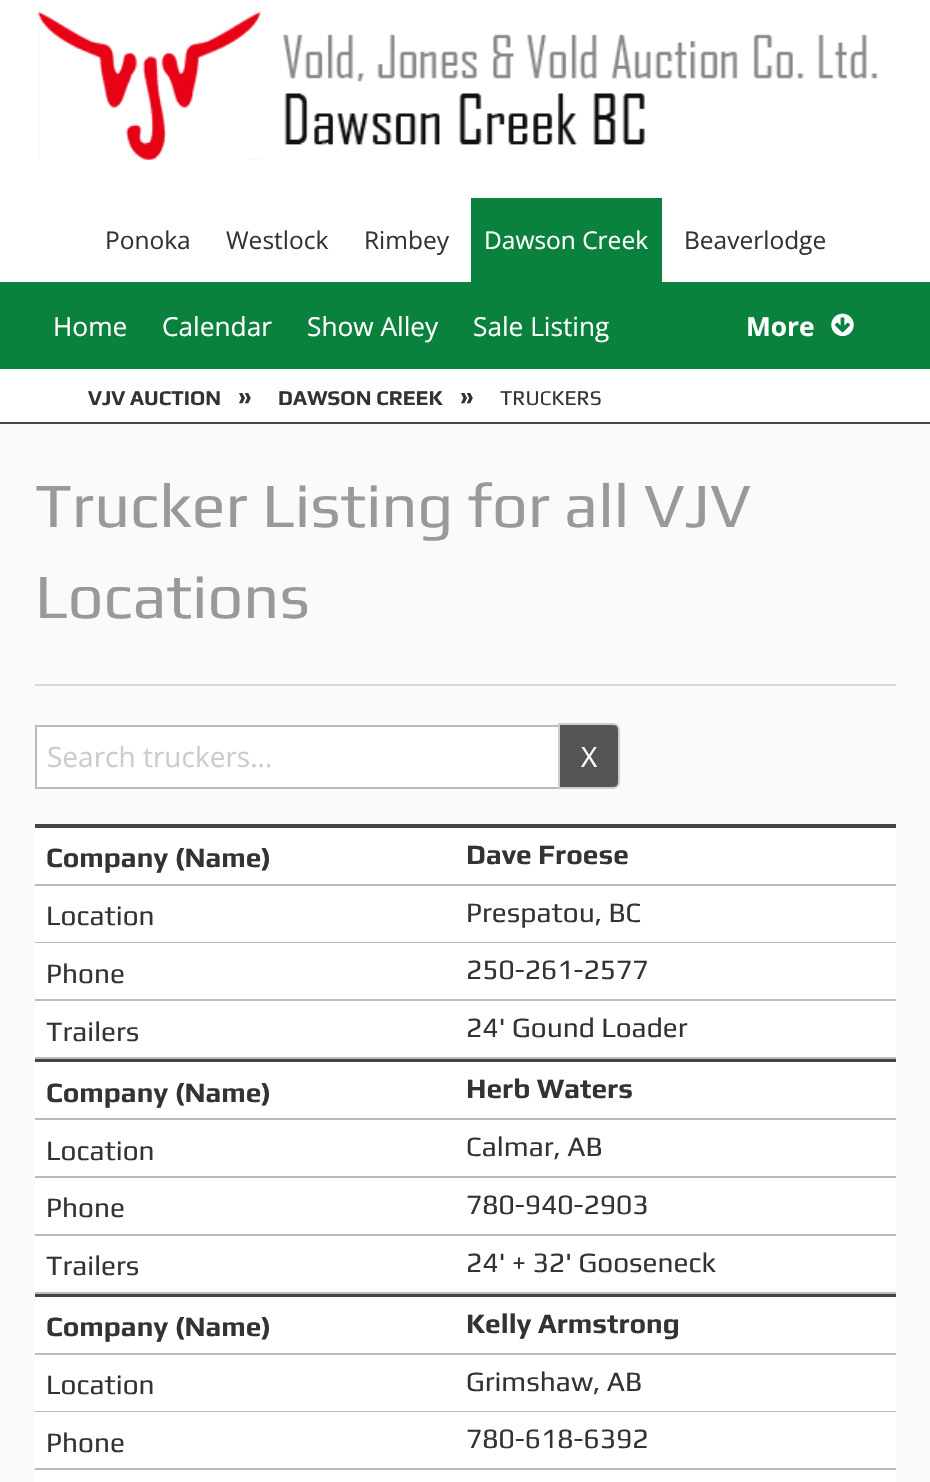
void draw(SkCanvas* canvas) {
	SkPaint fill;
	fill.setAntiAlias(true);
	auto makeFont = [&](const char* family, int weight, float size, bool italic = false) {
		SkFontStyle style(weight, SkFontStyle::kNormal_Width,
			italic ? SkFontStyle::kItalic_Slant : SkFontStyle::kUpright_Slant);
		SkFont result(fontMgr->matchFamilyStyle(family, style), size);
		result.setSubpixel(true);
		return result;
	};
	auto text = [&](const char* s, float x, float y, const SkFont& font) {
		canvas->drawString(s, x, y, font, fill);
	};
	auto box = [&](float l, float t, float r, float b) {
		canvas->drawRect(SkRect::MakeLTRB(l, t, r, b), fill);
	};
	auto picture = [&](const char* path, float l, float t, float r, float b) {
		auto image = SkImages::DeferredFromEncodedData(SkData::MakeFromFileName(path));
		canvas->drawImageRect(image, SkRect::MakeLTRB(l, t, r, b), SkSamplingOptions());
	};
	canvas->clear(0xFFFFFFFF);
	picture("image0.png", 37, 11, 878, 160);
	fill.setColor(0xFF0A813C);
	box(471, 198, 662, 282);
	box(0, 282, 930, 369);
	picture("image1.png", 831, 313, 854, 337);
	fill.setColor(0xFF444444);
	box(0, 422, 930, 424);
	fill.setColor(0xFFFAFAFA);
	box(0, 424, 930, 1482);
	fill.setColor(0xFFD9D9D9);
	box(35, 684, 896, 686);
	fill.setColor(0xFFFFFFFF);
	canvas->drawRect(SkRect::MakeLTRB(36, 726, 559, 788), fill);
	fill.setStyle(SkPaint::kStroke_Style);
	fill.setStrokeWidth(2);
	fill.setColor(0xFFBBBBBB);
	canvas->drawRect(SkRect::MakeLTRB(36, 726, 559, 788), fill);
	fill.setStyle(SkPaint::kFill_Style);
	fill.setColor(0xFF555555);
	canvas->drawPath(SkPathBuilder().moveTo(559, 724).lineTo(613, 724).cubicTo(616.5f, 724, 619, 726.5f, 619, 730).lineTo(619, 782).cubicTo(619, 785.5f, 616.5f, 788, 613, 788).lineTo(559, 788).close().detach(), fill);
	fill.setStyle(SkPaint::kStroke_Style);
	fill.setColor(0xFFCCCCCC);
	canvas->drawPath(SkPathBuilder().moveTo(559, 724).lineTo(613, 724).cubicTo(616.5f, 724, 619, 726.5f, 619, 730).lineTo(619, 782).cubicTo(619, 785.5f, 616.5f, 788, 613, 788).lineTo(559, 788).close().detach(), fill);
	fill.setStyle(SkPaint::kFill_Style);
	fill.setColor(0xFF444444);
	box(35, 824, 896, 828);
	fill.setColor(0xFFFFFFFF);
	box(35, 828, 896, 884);
	fill.setColor(0xFFBBBBBB);
	box(35, 884, 896, 886);
	fill.setColor(0xFFFFFFFF);
	box(35, 886, 896, 942);
	fill.setColor(0xFFBBBBBB);
	box(35, 942, 896, 943);
	fill.setColor(0xFFFFFFFF);
	box(35, 943, 896, 999);
	fill.setColor(0xFFBBBBBB);
	box(35, 999, 896, 1001);
	fill.setColor(0xFFFFFFFF);
	box(35, 1001, 896, 1057);
	fill.setColor(0xFFBBBBBB);
	box(35, 1057, 896, 1059);
	fill.setColor(0xFF444444);
	box(35, 1059, 896, 1062);
	fill.setColor(0xFFFFFFFF);
	box(35, 1062, 896, 1118);
	fill.setColor(0xFFBBBBBB);
	box(35, 1118, 896, 1120);
	fill.setColor(0xFFFFFFFF);
	box(35, 1120, 896, 1176);
	fill.setColor(0xFFBBBBBB);
	box(35, 1176, 896, 1178);
	fill.setColor(0xFFFFFFFF);
	box(35, 1178, 896, 1234);
	fill.setColor(0xFFBBBBBB);
	box(35, 1234, 896, 1236);
	fill.setColor(0xFFFFFFFF);
	box(35, 1236, 896, 1292);
	fill.setColor(0xFFBBBBBB);
	box(35, 1292, 896, 1294);
	fill.setColor(0xFF444444);
	box(35, 1294, 896, 1297);
	fill.setColor(0xFFFFFFFF);
	box(35, 1297, 896, 1353);
	fill.setColor(0xFFBBBBBB);
	box(35, 1353, 896, 1355);
	fill.setColor(0xFFFFFFFF);
	box(35, 1355, 896, 1411);
	fill.setColor(0xFFBBBBBB);
	box(35, 1411, 896, 1412);
	fill.setColor(0xFFFFFFFF);
	box(35, 1412, 896, 1468);
	fill.setColor(0xFFBBBBBB);
	box(35, 1468, 896, 1470);
	fill.setColor(0xFFFFFFFF);
	box(35, 1470, 896, 1482);
	auto font1 = makeFont("Open Sans", 400, 24.5f);
	fill.setColor(0xFF333333);
	text("Ponoka", 105, 249, font1);
	text("Westlock", 226, 249, font1);
	text("Rimbey", 364, 249, font1);
	fill.setColor(0xFFFFFFFF);
	text("Dawson Creek", 484, 249, font1);
	fill.setColor(0xFF333333);
	text("Beaverlodge", 684, 249, font1);
	auto font2 = makeFont("Open Sans", 400, 26.25f);
	fill.setColor(0xFFFFFFFF);
	text("Home", 53, 336, font2);
	text("Calendar", 162, 336, font2);
	text("Show Alley", 307, 336, font2);
	text("Sale Listing", 473, 336, font2);
	auto font3 = makeFont("Open Sans", 700, 26.25f);
	text("More", 746, 336, font3);
	auto font4 = makeFont("Play", 700, 21);
	fill.setColor(0xFF333333);
	text("VJV AUCTION", 88, 405, font4);
	auto font5 = makeFont("Play", 700, 26.25f);
	text("»", 238, 405, font5);
	text("DAWSON CREEK", 278, 405, font4);
	text("»", 460, 405, font5);
	auto font6 = makeFont("Play", 400, 21);
	text("TRUCKERS", 500, 405, font6);
	auto font7 = makeFont("Play", 400, 63);
	fill.setColor(0xFF999999);
	text("Trucker Listing for all VJV", 35, 527, font7);
	text("Locations", 35, 618, font7);
	auto font8 = makeFont("Open Sans", 400, 28);
	fill.setColor(0xFFCCCCCC);
	text("Search truckers...", 47, 767, font8);
	fill.setColor(0xFFFFFFFF);
	text("X", 581, 767, font8);
	auto font9 = makeFont("Play", 700, 28);
	fill.setColor(0xFF333333);
	text("Company (Name)", 46, 867, font9);
	text("Dave Froese", 466, 864, font9);
	auto font10 = makeFont("Play", 400, 28);
	text("Location", 46, 925, font10);
	text("Prespatou, BC", 466, 922, font10);
	text("Phone", 46, 983, font10);
	text("250-261-2577", 466, 979, font10);
	text("Trailers", 46, 1041, font10);
	text("24' Gound Loader", 466, 1037, font10);
	text("Company (Name)", 46, 1102, font9);
	text("Herb Waters", 466, 1098, font9);
	text("Location", 46, 1160, font10);
	text("Calmar, AB", 466, 1156, font10);
	text("Phone", 46, 1217, font10);
	text("780-940-2903", 466, 1214, font10);
	text("Trailers", 46, 1275, font10);
	text("24' + 32' Gooseneck", 466, 1272, font10);
	text("Company (Name)", 46, 1336, font9);
	text("Kelly Armstrong", 466, 1333, font9);
	text("Location", 46, 1394, font10);
	text("Grimshaw, AB", 466, 1391, font10);
	text("Phone", 46, 1452, font10);
	text("780-618-6392", 466, 1448, font10);
}
